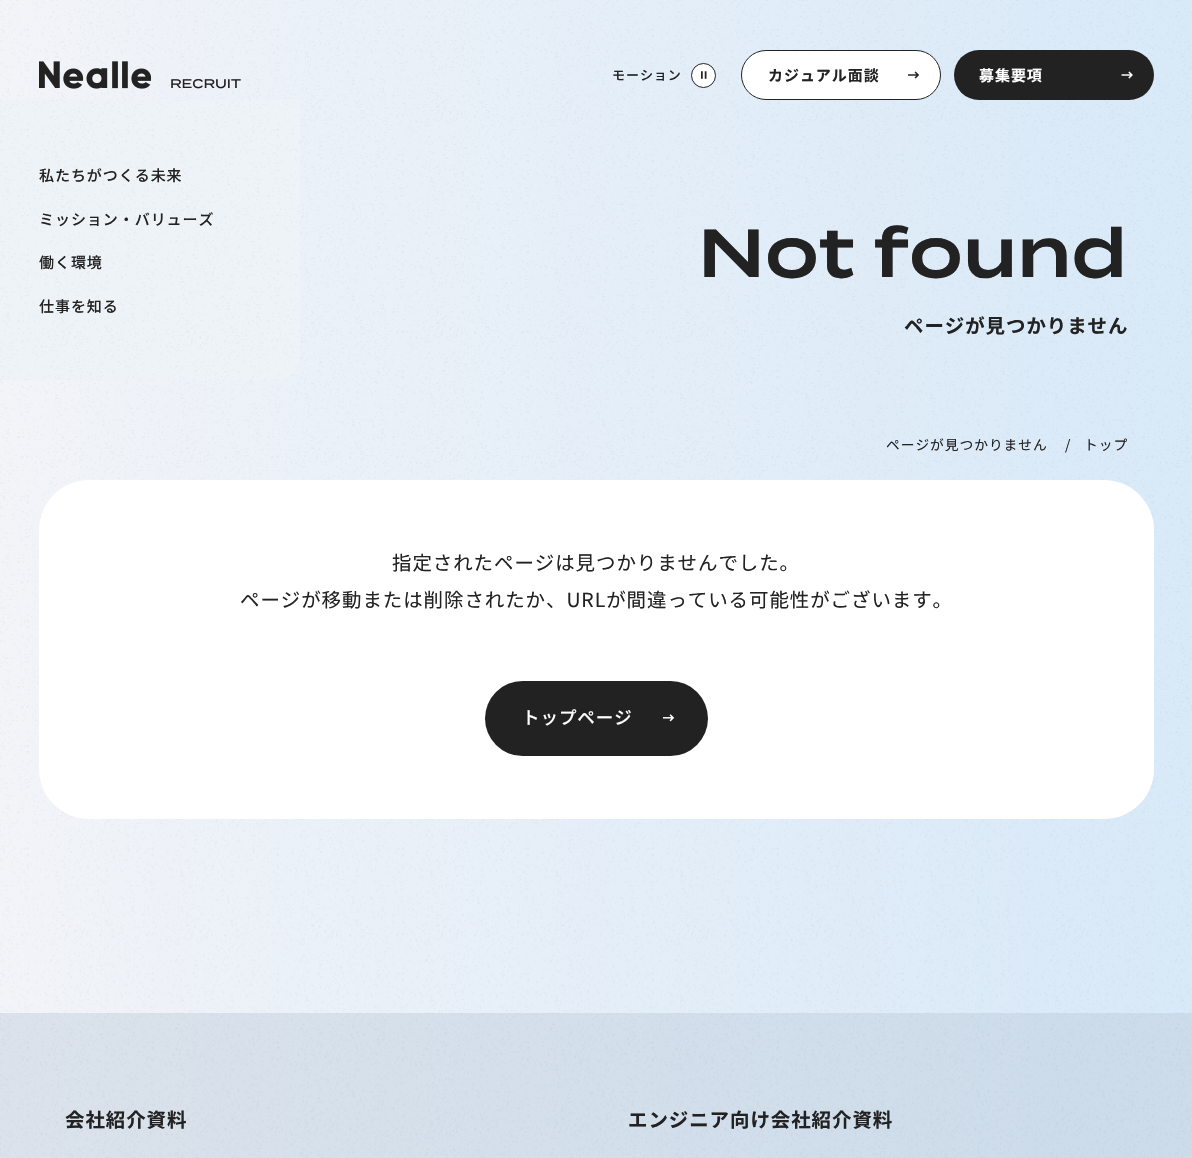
void draw(SkCanvas* canvas) {
	SkPaint fill;
	fill.setAntiAlias(true);
	auto makeFont = [&](const char* family, int weight, float size, bool italic = false) {
		SkFontStyle style(weight, SkFontStyle::kNormal_Width,
			italic ? SkFontStyle::kItalic_Slant : SkFontStyle::kUpright_Slant);
		SkFont result(fontMgr->matchFamilyStyle(family, style), size);
		result.setSubpixel(true);
		return result;
	};
	auto text = [&](const char* s, float x, float y, const SkFont& font) {
		canvas->drawString(s, x, y, font, fill);
	};
	auto spacedText = [&](const char* s, float x, float y, const SkFont& font, const SkPaint& ink, float letter, float word) {
		std::vector<SkGlyphID> glyphs(font.countText(s, strlen(s), SkTextEncoding::kUTF8));
		std::vector<float> xs(glyphs.size());
		font.textToGlyphs(s, strlen(s), SkTextEncoding::kUTF8, glyphs);
		font.getXPos(glyphs, xs, x);
		float extra = 0;
		for (size_t i = 0; i < glyphs.size(); i++) {
			xs[i] += extra;
			extra += letter + word * (glyphs[i] == font.unicharToGlyph(' '));
		}
		canvas->drawTextBlob(SkTextBlob::MakeFromPosHGlyphs(glyphs, xs, y, font), 0, 0, ink);
	};
	auto box = [&](float l, float t, float r, float b) {
		canvas->drawRect(SkRect::MakeLTRB(l, t, r, b), fill);
	};
	auto roundBox = [&](float l, float t, float r, float b, float radius) {
		canvas->drawRoundRect(SkRect::MakeLTRB(l, t, r, b), radius, radius, fill);
	};
	auto picture = [&](const char* path, float l, float t, float r, float b) {
		auto image = SkImages::DeferredFromEncodedData(SkData::MakeFromFileName(path));
		canvas->drawImageRect(image, SkRect::MakeLTRB(l, t, r, b), SkSamplingOptions());
	};
	canvas->clear(0xFFFFFFFF);
	picture("image0.png", 0, 0, 1192, 217);
	fill.setColor(0xFFFFFFFF);
	canvas->drawCircle(703.5f, 75.5f, 12, fill);
	fill.setStyle(SkPaint::kStroke_Style);
	fill.setStrokeWidth(1);
	fill.setColor(0xFF222222);
	canvas->drawCircle(703.5f, 75.5f, 12, fill);
	picture("image1.png", 701, 71, 707, 79);
	fill.setStyle(SkPaint::kFill_Style);
	fill.setColor(0xFFFFFFFF);
	canvas->drawRoundRect(SkRect::MakeLTRB(741.5f, 50.5f, 940.5f, 99.5f), 24.5f, 24.5f, fill);
	fill.setStyle(SkPaint::kStroke_Style);
	fill.setColor(0xFF222222);
	canvas->drawRoundRect(SkRect::MakeLTRB(741.5f, 50.5f, 940.5f, 99.5f), 24.5f, 24.5f, fill);
	picture("image2.png", 908, 71, 919, 79);
	fill.setStyle(SkPaint::kFill_Style);
	roundBox(954, 50, 1154, 100, 25);
	picture("image3.png", 1121, 71, 1133, 79);
	picture("image4.png", 39, 61, 151, 89);
	picture("image6.png", 0, 216, 1192, 819);
	fill.setColor(0xFFEEF3F8);
	canvas->drawPath(SkPathBuilder().moveTo(0, 100).lineTo(300, 100).lineTo(300, 355).cubicTo(300, 369, 289, 380, 275, 380).lineTo(0, 380).close().detach(), fill);
	picture("image5.png", 0, 100, 300, 380);
	fill.setColor(0xFFFFFFFF);
	roundBox(39, 480, 1154, 819, 50);
	fill.setColor(0xFF222222);
	roundBox(485, 681, 708, 756, 37.5f);
	picture("image7.png", 663, 714, 675, 722);
	picture("image8.png", 0, 819, 1192, 1158);
	fill.setColor(0x66BAC9D8);
	box(0, 1013, 1192, 1158);
	picture("image9.png", 0, 1012, 1192, 1158);
	auto font1 = makeFont("Noto Sans JP", 500, 13);
	fill.setColor(0xFF222222);
	spacedText("モーション", 612, 80, font1, fill, 0.95f, 0);
	auto font2 = makeFont("Noto Sans JP", 700, 15);
	spacedText("カジュアル面談", 768, 81, font2, fill, 0.95f, 0);
	fill.setColor(0xFFFFFFFF);
	spacedText("募集要項", 979, 81, font2, fill, 0.95f, 0);
	auto font3 = makeFont("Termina", 500, 12.5f);
	fill.setColor(0xFF222222);
	text("RECRUIT", 170, 88, font3);
	auto font4 = makeFont("Noto Sans JP", 500, 15);
	spacedText("私たちがつくる未来", 39, 181, font4, fill, 0.95f, 0);
	spacedText("ミッション・バリューズ", 39, 225, font4, fill, 0.95f, 0);
	spacedText("働く環境", 39, 268, font4, fill, 0.95f, 0);
	spacedText("仕事を知る", 39, 312, font4, fill, 0.95f, 0);
	auto font5 = makeFont("Termina", 600, 68);
	text("Not found", 698, 277, font5);
	auto font6 = makeFont("Noto Sans JP", 700, 19.45f);
	spacedText("ページが見つかりません", 904, 333, font6, fill, 0.95f, 0);
	auto font7 = makeFont("Noto Sans JP", 400, 13.75f);
	spacedText("ページが見つかりません", 886, 450, font7, fill, 0.95f, 0);
	spacedText("/", 1065, 450, font7, fill, 0.95f, 0);
	spacedText("トップ", 1084, 450, font7, fill, 0.95f, 0);
	auto font8 = makeFont("Noto Sans JP", 400, 19.45f);
	spacedText("指定されたページは見つかりませんでした。", 392, 570, font8, fill, 0.95f, 0);
	spacedText("ページが移動または削除されたか、URLが間違っている可能性がございます。", 240, 607, font8, fill, 0.95f, 0);
	auto font9 = makeFont("Noto Sans JP", 500, 17.5f);
	fill.setColor(0xFFFFFFFF);
	spacedText("トップページ", 522, 724, font9, fill, 0.95f, 0);
	fill.setColor(0xFF222222);
	spacedText("会社紹介資料", 65, 1127, font6, fill, 0.95f, 0);
	spacedText("エンジニア向け会社紹介資料", 628, 1127, font6, fill, 0.95f, 0);
}
